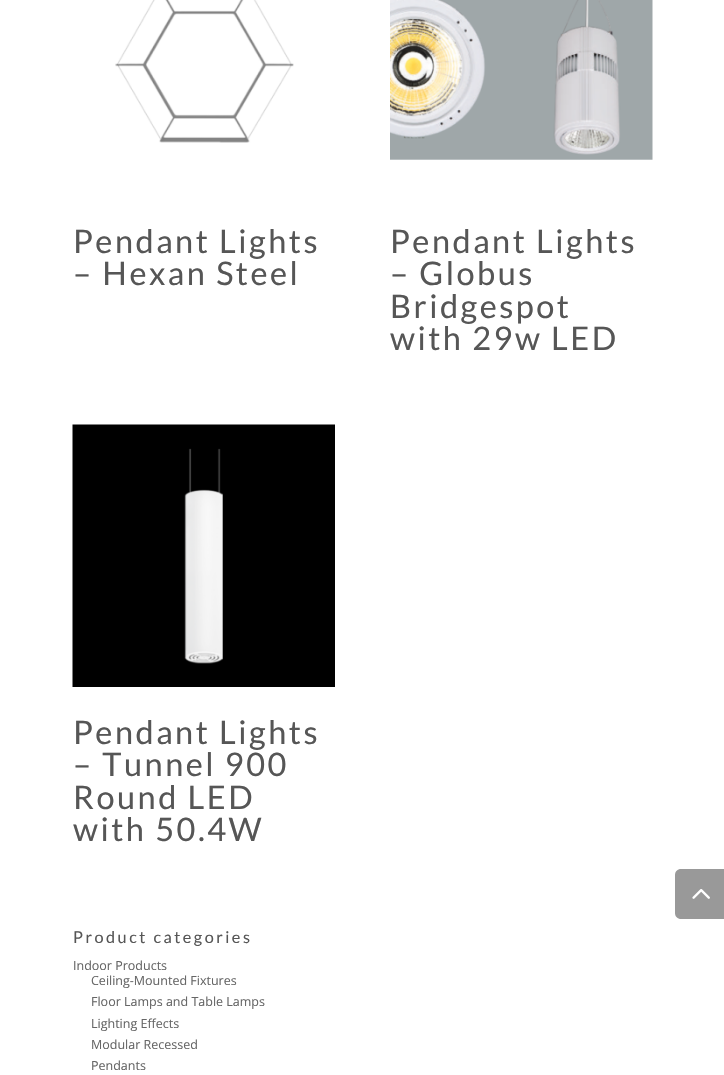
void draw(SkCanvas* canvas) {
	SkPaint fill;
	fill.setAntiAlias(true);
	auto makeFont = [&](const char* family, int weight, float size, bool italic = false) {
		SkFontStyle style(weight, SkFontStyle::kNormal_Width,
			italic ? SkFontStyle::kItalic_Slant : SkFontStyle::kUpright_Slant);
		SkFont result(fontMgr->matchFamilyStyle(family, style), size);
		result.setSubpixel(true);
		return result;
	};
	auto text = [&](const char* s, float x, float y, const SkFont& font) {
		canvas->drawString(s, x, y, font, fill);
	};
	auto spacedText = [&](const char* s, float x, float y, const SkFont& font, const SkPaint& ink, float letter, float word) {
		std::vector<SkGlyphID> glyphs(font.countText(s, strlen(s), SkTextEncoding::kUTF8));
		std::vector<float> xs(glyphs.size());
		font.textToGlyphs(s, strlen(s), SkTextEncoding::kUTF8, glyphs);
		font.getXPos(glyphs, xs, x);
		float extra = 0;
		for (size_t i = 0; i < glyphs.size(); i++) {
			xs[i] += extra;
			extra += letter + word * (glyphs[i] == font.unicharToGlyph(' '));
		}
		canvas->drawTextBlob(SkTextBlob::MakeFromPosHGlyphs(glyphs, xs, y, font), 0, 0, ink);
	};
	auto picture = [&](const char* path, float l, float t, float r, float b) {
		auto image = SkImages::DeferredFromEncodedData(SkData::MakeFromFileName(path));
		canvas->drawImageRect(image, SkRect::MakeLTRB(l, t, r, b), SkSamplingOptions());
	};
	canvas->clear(0xFFFFFFFF);
	picture("image0.png", 115, 0, 294, 143);
	picture("image1.png", 390, 0, 653, 160);
	picture("image2.png", 72, 424, 335, 687);
	fill.setColor(0xFF999999);
	canvas->drawPath(SkPathBuilder().moveTo(681, 869).lineTo(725, 869).lineTo(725, 919).lineTo(681, 919).cubicTo(677.5f, 919, 675, 916.5f, 675, 913).lineTo(675, 875).cubicTo(675, 871.5f, 677.5f, 869, 681, 869).close().detach(), fill);
	picture("image3.png", 692, 889, 710, 899);
	auto font1 = makeFont("Lato", 400, 32.5f);
	fill.setColor(0xFF565656);
	spacedText("Pendant Lights", 73, 253, font1, fill, 2.5f, 0);
	spacedText("– Hexan Steel", 73, 285, font1, fill, 2.5f, 0);
	spacedText("Pendant Lights", 390, 253, font1, fill, 2.5f, 0);
	spacedText("– Globus", 390, 285, font1, fill, 2.5f, 0);
	spacedText("Bridgespot", 390, 318, font1, fill, 2.5f, 0);
	spacedText("with 29w LED", 390, 350, font1, fill, 2.5f, 0);
	spacedText("Pendant Lights", 73, 744, font1, fill, 2.5f, 0);
	spacedText("– Tunnel 900", 73, 776, font1, fill, 2.5f, 0);
	spacedText("Round LED", 73, 809, font1, fill, 2.5f, 0);
	spacedText("with 50.4W", 73, 841, font1, fill, 2.5f, 0);
	auto font2 = makeFont("Lato", 400, 16.25f);
	spacedText("Product categories", 73, 943, font2, fill, 2.5f, 0);
	auto font3 = makeFont("Open Sans", 400, 12.5f);
	fill.setColor(0xFF666666);
	text("Indoor Products", 73, 970, font3);
	text("Ceiling-Mounted Fixtures", 91, 985, font3);
	text("Floor Lamps and Table Lamps", 91, 1006, font3);
	text("Lighting Effects", 91, 1028, font3);
	text("Modular Recessed", 91, 1049, font3);
	text("Pendants", 91, 1070, font3);
}
